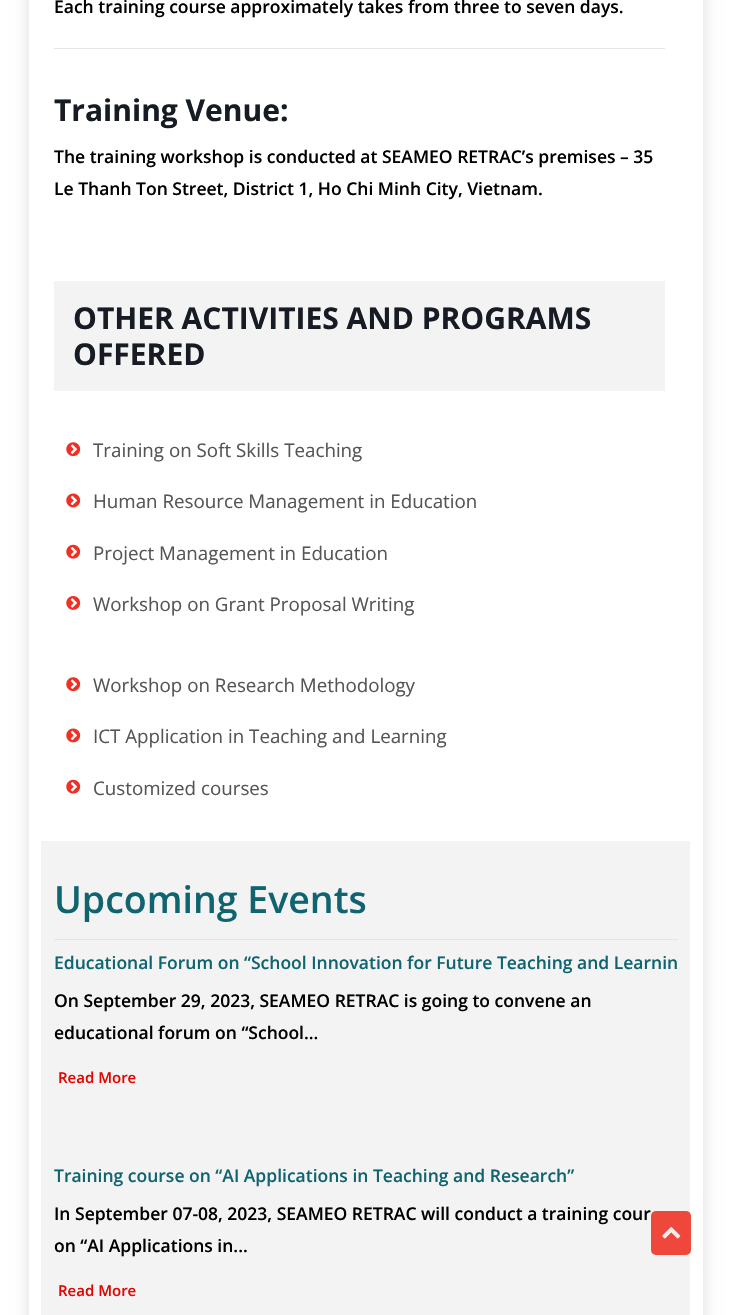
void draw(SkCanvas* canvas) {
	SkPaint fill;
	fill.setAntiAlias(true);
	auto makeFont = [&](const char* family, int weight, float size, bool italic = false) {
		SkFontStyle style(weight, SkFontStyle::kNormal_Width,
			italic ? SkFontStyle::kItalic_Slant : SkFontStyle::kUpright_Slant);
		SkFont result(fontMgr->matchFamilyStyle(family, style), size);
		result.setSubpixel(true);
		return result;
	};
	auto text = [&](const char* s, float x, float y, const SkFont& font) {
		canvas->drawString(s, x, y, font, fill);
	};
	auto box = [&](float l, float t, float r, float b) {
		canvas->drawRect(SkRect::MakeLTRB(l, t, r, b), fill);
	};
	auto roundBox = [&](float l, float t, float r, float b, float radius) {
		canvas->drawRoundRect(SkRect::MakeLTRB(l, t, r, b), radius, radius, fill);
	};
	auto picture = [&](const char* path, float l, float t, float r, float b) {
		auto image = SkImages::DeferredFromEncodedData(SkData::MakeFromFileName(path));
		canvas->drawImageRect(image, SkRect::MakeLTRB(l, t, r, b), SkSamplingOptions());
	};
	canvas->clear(0xFFFFFFFF);
	canvas->save();
	canvas->clipPath(SkPathBuilder(SkPathFillType::kEvenOdd).moveTo(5, 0).lineTo(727, 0).lineTo(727, 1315).lineTo(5, 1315).close().moveTo(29, -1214).lineTo(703, -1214).lineTo(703, 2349).lineTo(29, 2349).close().detach(), true);
	fill.setColor(0xFFDDDDDD);
	fill.setMaskFilter(SkMaskFilter::MakeBlur(kNormal_SkBlurStyle, 7.5f));
	canvas->drawRect(SkRect::MakeLTRB(29, -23, 703, 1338), fill);
	fill.setMaskFilter(nullptr);
	canvas->restore();
	fill.setColor(0xFFE5E5E5);
	box(54, 48, 665, 49);
	fill.setColor(0xFFF3F3F3);
	box(54, 281, 665, 391);
	picture("image0.png", 66, 442, 81, 457);
	picture("image1.png", 66, 493, 81, 508);
	picture("image2.png", 66, 544, 81, 559);
	picture("image3.png", 66, 596, 81, 610);
	picture("image0.png", 66, 677, 81, 692);
	picture("image1.png", 66, 728, 81, 743);
	picture("image2.png", 66, 779, 81, 794);
	box(41, 841, 690, 1315);
	fill.setColor(0xFFE5E5E5);
	box(54, 939, 678, 940);
	fill.setColor(0xE3EE3124);
	roundBox(651, 1211, 691, 1255, 5);
	picture("image4.png", 662, 1227, 681, 1239);
	auto font1 = makeFont("Open Sans", 600, 17.5f);
	fill.setColor(0xFF000000);
	text("Each training course approximately takes from three to seven days.", 54, 13, font1);
	auto font2 = makeFont("Open Sans", 700, 30);
	fill.setColor(0xFF171C24);
	text("Training Venue:", 54, 121, font2);
	fill.setColor(0xFF000000);
	text("The training workshop is conducted at SEAMEO RETRAC’s premises – 35", 54, 163, font1);
	text("Le Thanh Ton Street, District 1, Ho Chi Minh City, Vietnam.", 54, 195, font1);
	fill.setColor(0xFF171C24);
	text("OTHER ACTIVITIES AND PROGRAMS", 73, 329, font2);
	text("OFFERED", 73, 365, font2);
	auto font3 = makeFont("Open Sans", 400, 18.75f);
	fill.setColor(0xFF555555);
	text("Training on Soft Skills Teaching", 93, 457, font3);
	text("Human Resource Management in Education", 93, 508, font3);
	text("Project Management in Education", 93, 560, font3);
	text("Workshop on Grant Proposal Writing", 93, 611, font3);
	text("Workshop on Research Methodology", 93, 692, font3);
	text("ICT Application in Teaching and Learning", 93, 743, font3);
	text("Customized courses", 93, 795, font3);
	auto font4 = makeFont("Open Sans", 600, 37.5f);
	fill.setColor(0xFF106470);
	text("Upcoming Events", 54, 913, font4);
	text("Educational Forum on “School Innovation for Future Teaching and Learnin", 54, 969, font1);
	fill.setColor(0xFF000000);
	text("On September 29, 2023, SEAMEO RETRAC is going to convene an", 54, 1007, font1);
	text("educational forum on “School...", 54, 1039, font1);
	auto font5 = makeFont("Open Sans", 600, 15);
	fill.setColor(0xFFE40500);
	text("Read More", 58, 1083, font5);
	fill.setColor(0xFF106470);
	text("Training course on “AI Applications in Teaching and Research”", 54, 1182, font1);
	fill.setColor(0xFF000000);
	text("In September 07-08, 2023, SEAMEO RETRAC will conduct a training cour", 54, 1220, font1);
	text("on “AI Applications in...", 54, 1252, font1);
	fill.setColor(0xFFE40500);
	text("Read More", 58, 1296, font5);
}
